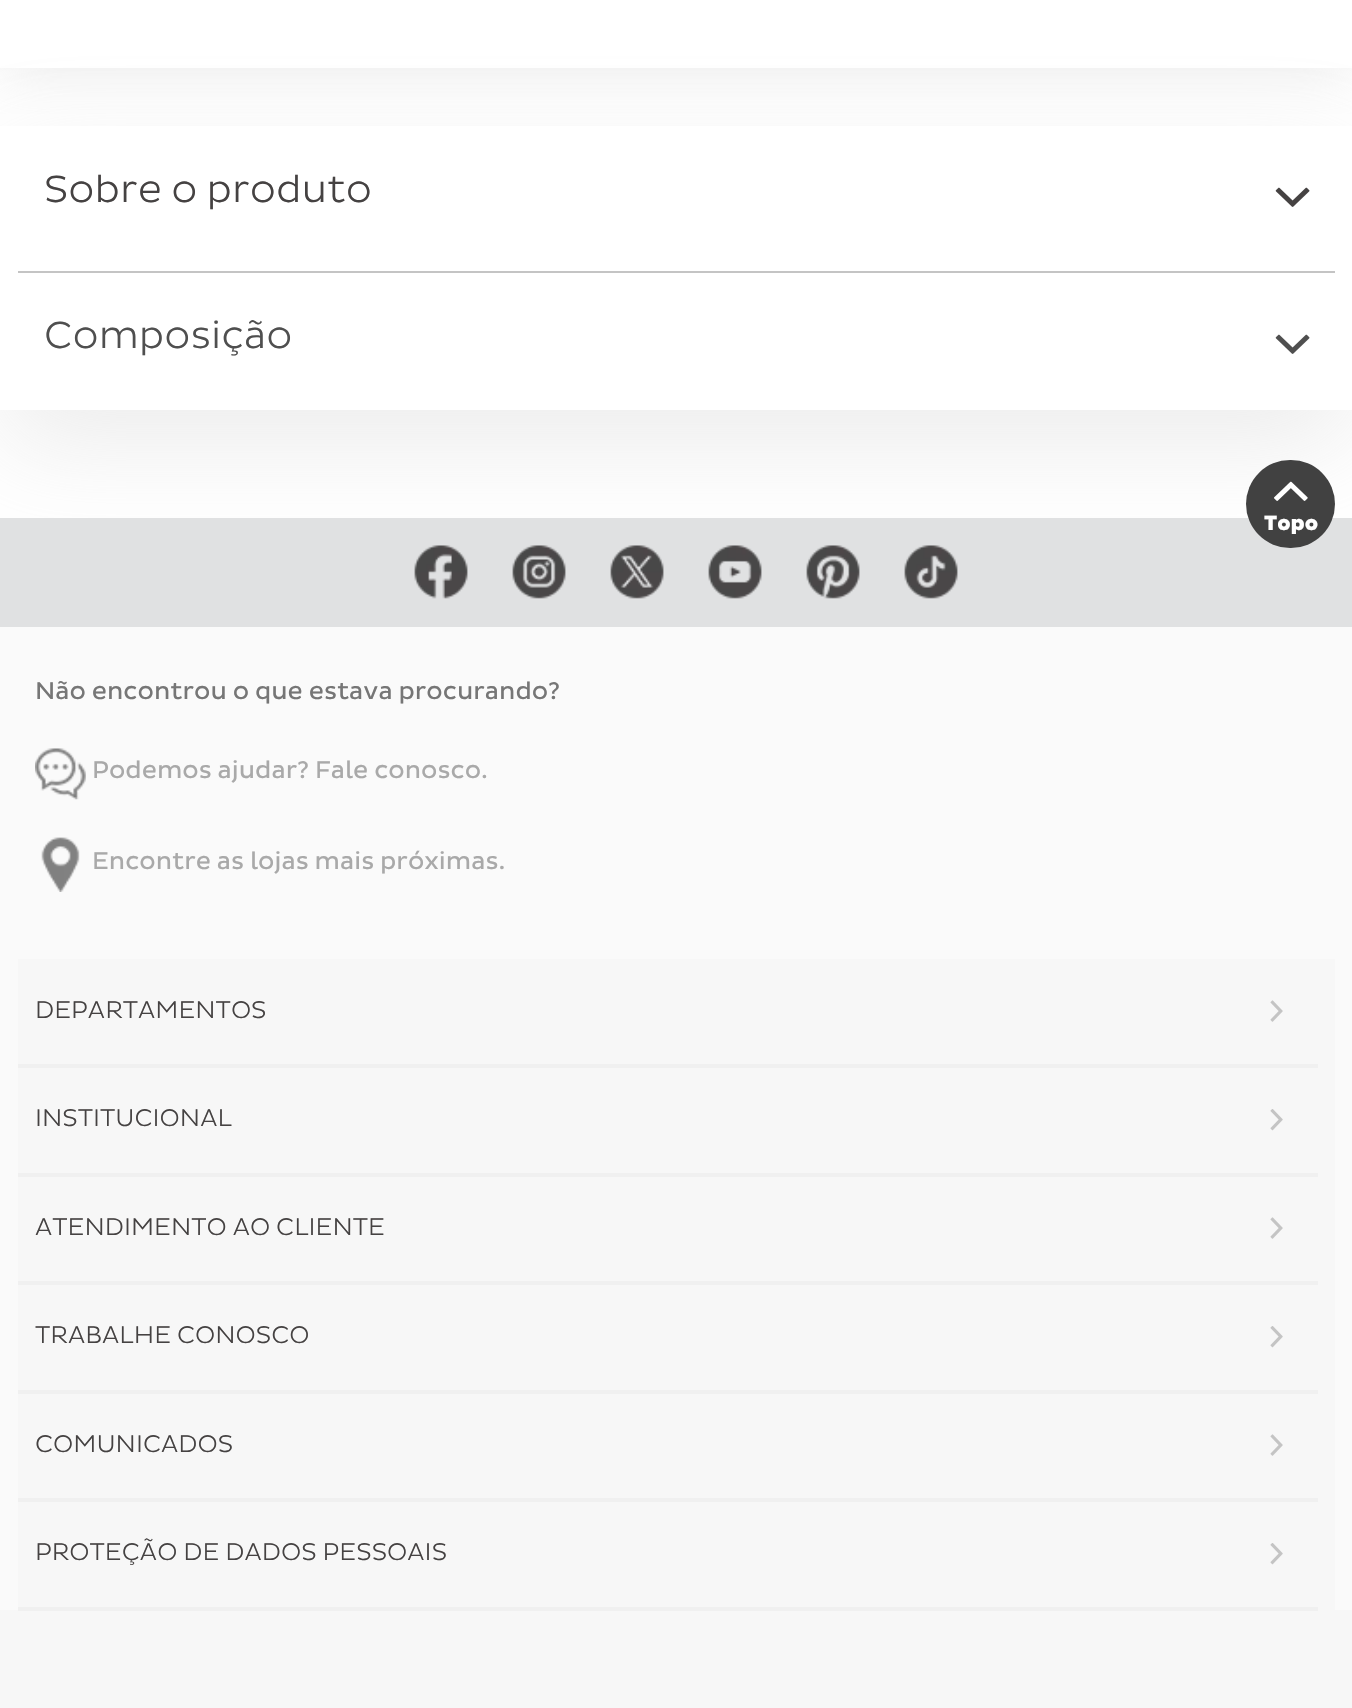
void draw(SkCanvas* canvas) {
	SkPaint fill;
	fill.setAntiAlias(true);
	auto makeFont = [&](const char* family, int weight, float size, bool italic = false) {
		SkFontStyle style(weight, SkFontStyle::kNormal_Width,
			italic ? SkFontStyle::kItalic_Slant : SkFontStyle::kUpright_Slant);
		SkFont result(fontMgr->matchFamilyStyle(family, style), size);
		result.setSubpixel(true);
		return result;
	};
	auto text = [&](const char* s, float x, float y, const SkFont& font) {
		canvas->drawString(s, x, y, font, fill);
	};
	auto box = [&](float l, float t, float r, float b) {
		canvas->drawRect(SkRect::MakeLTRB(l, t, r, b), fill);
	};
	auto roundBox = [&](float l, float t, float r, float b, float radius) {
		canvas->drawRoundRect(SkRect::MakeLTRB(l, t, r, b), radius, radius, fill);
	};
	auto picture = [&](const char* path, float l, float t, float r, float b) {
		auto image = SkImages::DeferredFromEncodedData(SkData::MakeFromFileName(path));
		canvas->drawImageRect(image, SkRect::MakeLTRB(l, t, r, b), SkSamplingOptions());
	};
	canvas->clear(0xFFFFFFFF);
	canvas->save();
	canvas->clipRect(SkRect::MakeLTRB(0, 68, 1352, 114));
	fill.setColor(0x52C5C5C5);
	fill.setMaskFilter(SkMaskFilter::MakeBlur(kNormal_SkBlurStyle, 26));
	canvas->drawRect(SkRect::MakeLTRB(0, -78, 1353, 74), fill);
	fill.setMaskFilter(nullptr);
	canvas->restore();
	canvas->save();
	canvas->clipPath(SkPathBuilder(SkPathFillType::kEvenOdd).moveTo(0, 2).lineTo(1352, 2).lineTo(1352, 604).lineTo(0, 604).close().moveTo(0, 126).lineTo(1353, 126).lineTo(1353, 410).lineTo(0, 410).close().detach(), true);
	fill.setMaskFilter(SkMaskFilter::MakeBlur(kNormal_SkBlurStyle, 52.5f));
	canvas->drawRect(SkRect::MakeLTRB(0, 161, 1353, 445), fill);
	fill.setMaskFilter(nullptr);
	canvas->restore();
	picture("image0.png", 1275, 187, 1310, 207);
	fill.setColor(0xFFFFFFFF);
	box(18, 409, 1335, 410);
	fill.setColor(0xFFC4C4C4);
	box(18, 271, 1335, 273);
	picture("image1.png", 1275, 334, 1310, 354);
	fill.setColor(0xFFF7F7F7);
	box(0, 1610, 1352, 1708);
	fill.setColor(0xFFE0E1E2);
	box(0, 518, 1352, 627);
	fill.setColor(0xFF414141);
	roundBox(1246, 460, 1335, 548, 44);
	picture("image2.png", 1274, 481, 1308, 501);
	picture("image3.png", 414, 545, 468, 599);
	picture("image4.png", 512, 545, 566, 599);
	picture("image5.png", 610, 545, 664, 599);
	picture("image6.png", 708, 545, 762, 599);
	picture("image7.png", 806, 545, 860, 599);
	picture("image8.png", 904, 545, 958, 599);
	fill.setColor(0xFFFAFAFA);
	box(0, 627, 1352, 1610);
	picture("image9.png", 35, 748, 86, 800);
	picture("image10.png", 41, 837, 80, 892);
	fill.setColor(0xFFF7F7F7);
	box(18, 959, 1335, 1610);
	fill.setColor(0xFFF0F0F0);
	box(18, 1064, 1318, 1068);
	picture("image11.png", 1270, 1000, 1283, 1022);
	box(18, 1173, 1318, 1177);
	picture("image12.png", 1270, 1109, 1283, 1131);
	box(18, 1281, 1318, 1285);
	picture("image11.png", 1270, 1217, 1283, 1239);
	box(18, 1390, 1318, 1394);
	picture("image12.png", 1270, 1326, 1283, 1348);
	box(18, 1498, 1318, 1502);
	picture("image11.png", 1270, 1434, 1283, 1456);
	box(18, 1607, 1318, 1611);
	picture("image12.png", 1270, 1543, 1283, 1565);
	auto font1 = makeFont("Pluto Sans", 300, 38.5f);
	fill.setColor(0xFF454242);
	text("Sobre o produto", 44, 202, font1);
	fill.setColor(0xFF4F4F4F);
	text("Composição", 44, 348, font1);
	auto font2 = makeFont("Pluto Sans", 900, 21);
	fill.setColor(0xFFFFFFFF);
	text("Topo", 1264, 530, font2);
	auto font3 = makeFont("Pluto Sans", 400, 24.5f);
	fill.setColor(0xFF767676);
	text("Não encontrou o que estava procurando?", 35, 699, font3);
	fill.setColor(0xFFA9A9A9);
	text("Podemos ajudar? Fale conosco.", 92, 778, font3);
	text("Encontre as lojas mais próximas.", 92, 869, font3);
	auto font4 = makeFont("Pluto Sans", 300, 24.5f);
	fill.setColor(0xFF454242);
	text("DEPARTAMENTOS", 35, 1018, font4);
	text("INSTITUCIONAL", 35, 1126, font4);
	text("ATENDIMENTO AO CLIENTE", 35, 1235, font4);
	text("TRABALHE CONOSCO", 35, 1343, font4);
	text("COMUNICADOS", 35, 1452, font4);
	text("PROTEÇÃO DE DADOS PESSOAIS", 35, 1560, font4);
}
